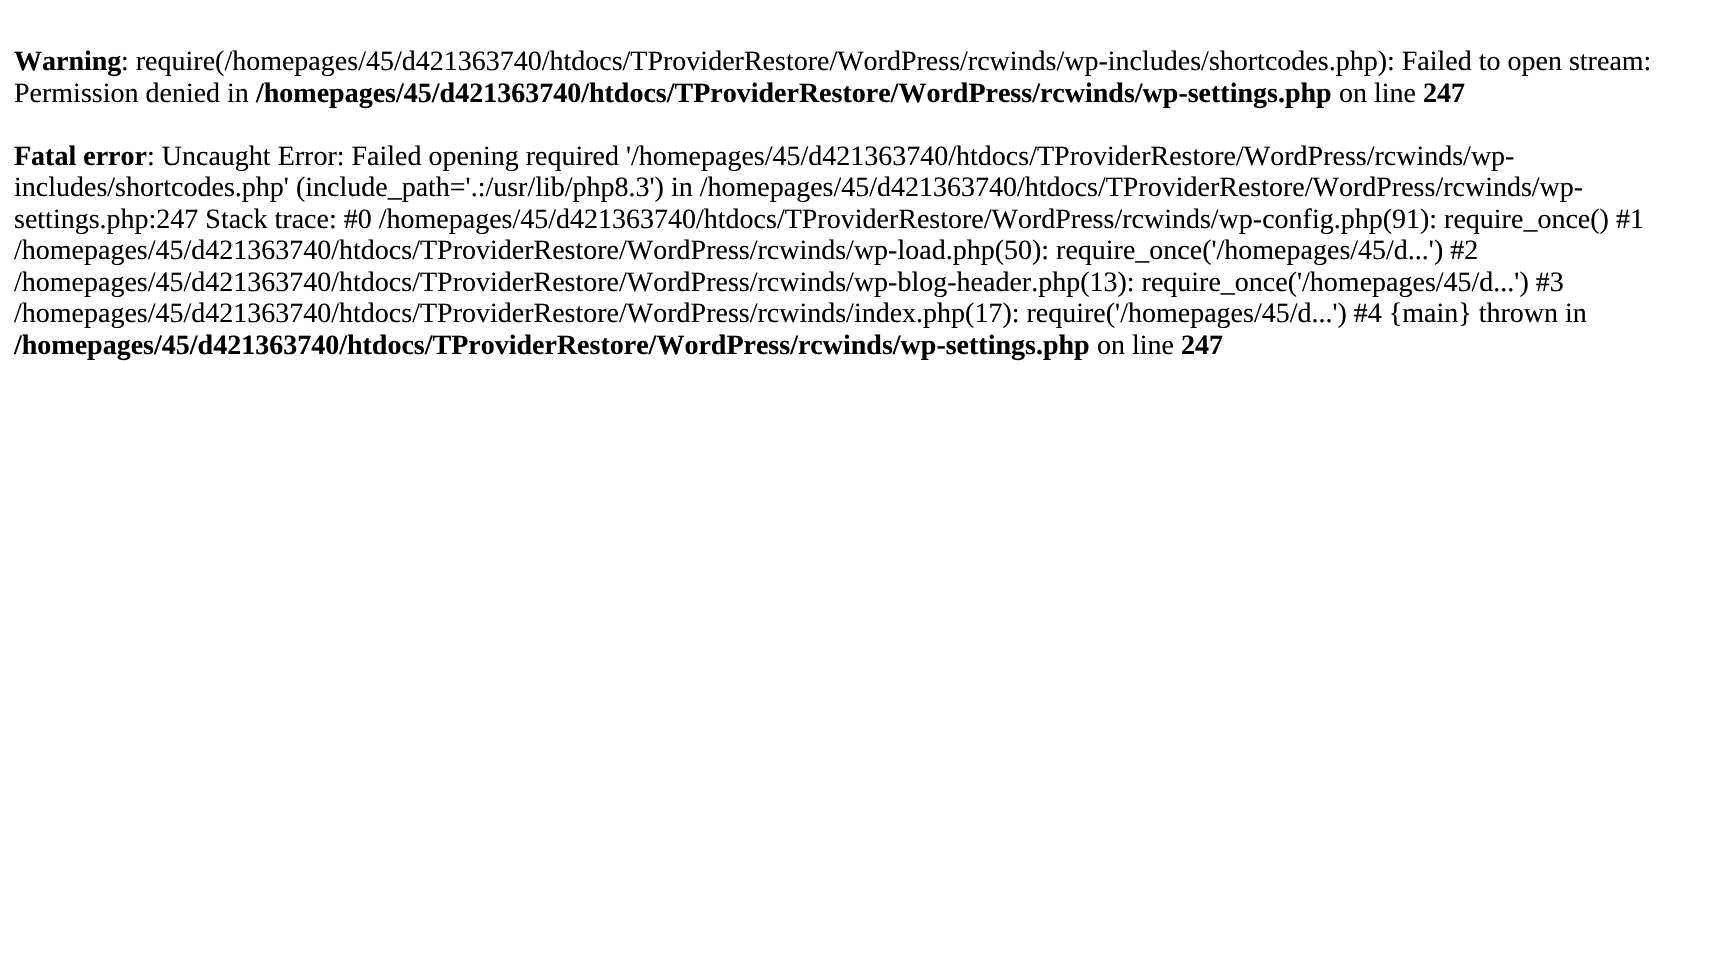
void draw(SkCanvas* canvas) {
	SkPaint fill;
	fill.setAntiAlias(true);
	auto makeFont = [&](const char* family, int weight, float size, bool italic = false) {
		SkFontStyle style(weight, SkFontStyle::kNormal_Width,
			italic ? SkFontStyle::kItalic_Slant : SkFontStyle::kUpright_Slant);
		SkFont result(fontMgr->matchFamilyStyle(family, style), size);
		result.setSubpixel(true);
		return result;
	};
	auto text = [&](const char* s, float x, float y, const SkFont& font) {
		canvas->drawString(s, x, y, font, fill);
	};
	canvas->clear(0xFFFFFFFF);
	auto font1 = makeFont("Liberation Serif", 700, 28);
	fill.setColor(0xFF000000);
	text("Warning", 14, 70, font1);
	auto font2 = makeFont("Liberation Serif", 400, 28);
	text(": require(/homepages/45/d421363740/htdocs/TProviderRestore/WordPress/rcwinds/wp-includes/shortcodes.php): Failed to open stream:", 121, 70, font2);
	text("Permission denied in", 14, 102, font2);
	text("/homepages/45/d421363740/htdocs/TProviderRestore/WordPress/rcwinds/wp-settings.php", 256, 102, font1);
	text("on line", 1339, 102, font2);
	text("247", 1423, 102, font1);
	text("Fatal error", 14, 165, font1);
	text(": Uncaught Error: Failed opening required '/homepages/45/d421363740/htdocs/TProviderRestore/WordPress/rcwinds/wp-", 147, 165, font2);
	text("includes/shortcodes.php' (include_path='.:/usr/lib/php8.3') in /homepages/45/d421363740/htdocs/TProviderRestore/WordPress/rcwinds/wp-", 14, 196, font2);
	text("settings.php:247 Stack trace: #0 /homepages/45/d421363740/htdocs/TProviderRestore/WordPress/rcwinds/wp-config.php(91): require_once() #1", 14, 228, font2);
	text("/homepages/45/d421363740/htdocs/TProviderRestore/WordPress/rcwinds/wp-load.php(50): require_once('/homepages/45/d...') #2", 14, 259, font2);
	text("/homepages/45/d421363740/htdocs/TProviderRestore/WordPress/rcwinds/wp-blog-header.php(13): require_once('/homepages/45/d...') #3", 14, 291, font2);
	text("/homepages/45/d421363740/htdocs/TProviderRestore/WordPress/rcwinds/index.php(17): require('/homepages/45/d...') #4 {main} thrown in", 14, 322, font2);
	text("/homepages/45/d421363740/htdocs/TProviderRestore/WordPress/rcwinds/wp-settings.php", 14, 354, font1);
	text("on line", 1097, 354, font2);
	text("247", 1181, 354, font1);
}
